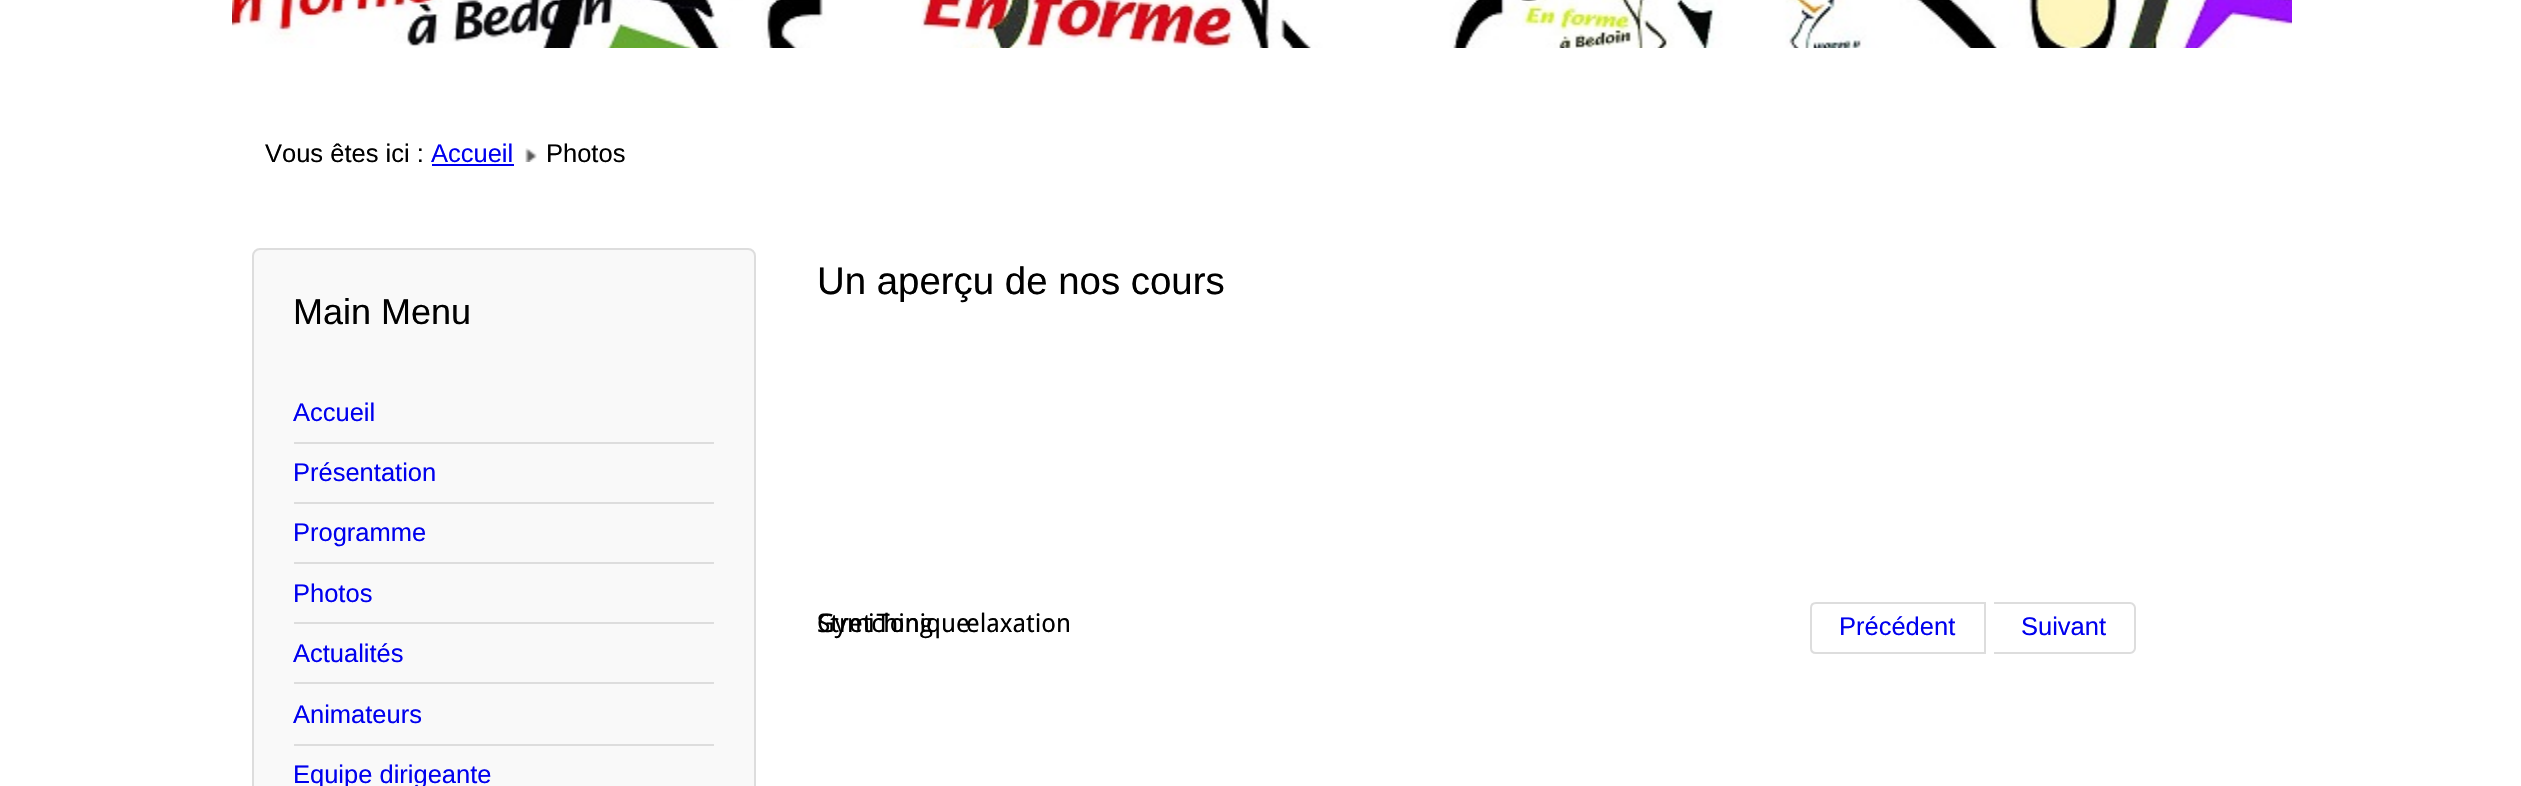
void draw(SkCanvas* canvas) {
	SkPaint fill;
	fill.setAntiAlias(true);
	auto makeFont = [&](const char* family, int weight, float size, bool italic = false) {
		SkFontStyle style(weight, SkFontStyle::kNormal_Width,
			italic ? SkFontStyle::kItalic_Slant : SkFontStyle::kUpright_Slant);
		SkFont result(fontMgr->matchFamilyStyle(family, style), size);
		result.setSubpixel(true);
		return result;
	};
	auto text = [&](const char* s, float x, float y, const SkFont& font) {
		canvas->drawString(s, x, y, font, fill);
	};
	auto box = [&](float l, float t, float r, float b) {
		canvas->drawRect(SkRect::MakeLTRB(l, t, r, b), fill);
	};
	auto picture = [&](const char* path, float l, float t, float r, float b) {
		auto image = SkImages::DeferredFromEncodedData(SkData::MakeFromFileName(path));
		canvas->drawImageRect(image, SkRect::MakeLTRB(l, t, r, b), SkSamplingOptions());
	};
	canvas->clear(0xFFFFFFFF);
	picture("image0.png", 232, 0, 2292, 48);
	fill.setColor(0xFF0000EE);
	box(432, 164, 514, 166);
	picture("image1.png", 525, 148, 537, 162);
	fill.setColor(0xFFF9F9F9);
	canvas->drawRoundRect(SkRect::MakeLTRB(253, 249, 755, 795), 7, 7, fill);
	fill.setStyle(SkPaint::kStroke_Style);
	fill.setStrokeWidth(2);
	fill.setColor(0xFFDDDDDD);
	canvas->drawRoundRect(SkRect::MakeLTRB(253, 249, 755, 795), 7, 7, fill);
	fill.setStyle(SkPaint::kFill_Style);
	box(294, 442, 714, 444);
	box(294, 502, 714, 504);
	box(294, 562, 714, 564);
	box(294, 622, 714, 624);
	box(294, 682, 714, 684);
	box(294, 744, 714, 746);
	fill.setStyle(SkPaint::kStroke_Style);
	canvas->drawPath(SkPathBuilder().moveTo(1816, 603).lineTo(1985, 603).lineTo(1985, 653).lineTo(1816, 653).cubicTo(1813, 653, 1811, 651, 1811, 648).lineTo(1811, 608).cubicTo(1811, 605, 1813, 603, 1816, 603).close().detach(), fill);
	fill.setStyle(SkPaint::kFill_Style);
	canvas->drawPath(SkPathBuilder(SkPathFillType::kEvenOdd).moveTo(1994, 602).lineTo(2130, 602).cubicTo(2133, 602, 2136, 605, 2136, 608).lineTo(2136, 648).cubicTo(2136, 651, 2133, 654, 2130, 654).lineTo(1994, 654).close().moveTo(1994, 604).lineTo(2130, 604).cubicTo(2132, 604, 2134, 606, 2134, 608).lineTo(2134, 648).cubicTo(2134, 650, 2132, 652, 2130, 652).lineTo(1994, 652).close().detach(), fill);
	auto font1 = makeFont("Liberation Sans", 400, 25.5f);
	fill.setColor(0xFF000000);
	text("Vous êtes ici :", 265, 162, font1);
	fill.setColor(0xFF0000EE);
	text("Accueil", 431, 162, font1);
	fill.setColor(0xFF000000);
	text("Photos", 546, 162, font1);
	auto font2 = makeFont("Liberation Sans", 400, 36);
	text("Main Menu", 293, 324, font2);
	fill.setColor(0xFF0000EE);
	text("Accueil", 293, 421, font1);
	text("Présentation", 293, 481, font1);
	text("Programme", 293, 541, font1);
	text("Photos", 293, 602, font1);
	text("Actualités", 293, 662, font1);
	text("Animateurs", 293, 723, font1);
	text("Equipe dirigeante", 293, 783, font1);
	auto font3 = makeFont("Liberation Sans", 400, 38.4f);
	fill.setColor(0xFF000000);
	text("Un aperçu de nos cours", 817, 294, font3);
	auto font4 = makeFont("Droid Sans", 400, 25.5f);
	text("Stretching", 817, 632, font4);
	text("Gym Tonique", 817, 632, font4);
	text("elaxation", 966, 632, font4);
	text("i", 868, 632, font4);
	fill.setColor(0xFF0000EE);
	text("Précédent", 1839, 635, font1);
	text("Suivant", 2021, 635, font1);
}
